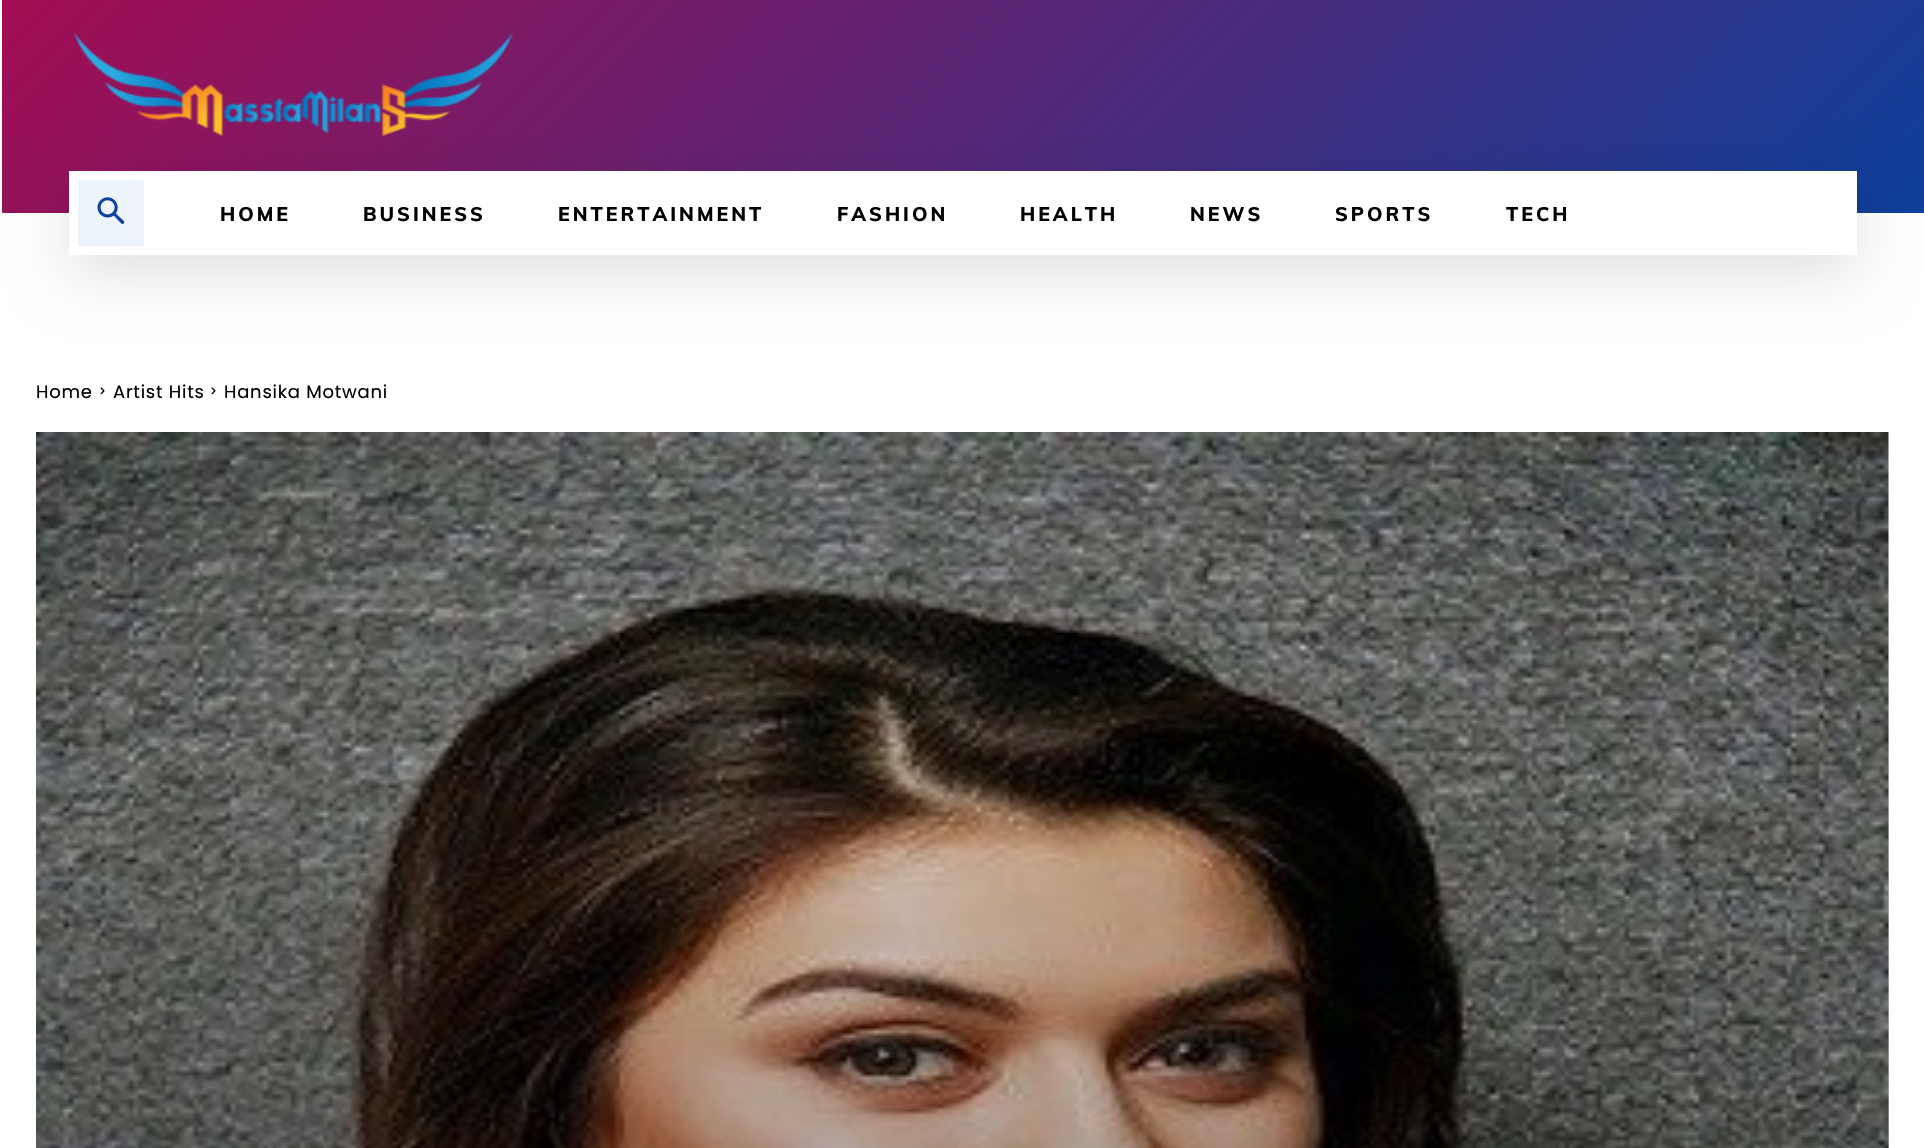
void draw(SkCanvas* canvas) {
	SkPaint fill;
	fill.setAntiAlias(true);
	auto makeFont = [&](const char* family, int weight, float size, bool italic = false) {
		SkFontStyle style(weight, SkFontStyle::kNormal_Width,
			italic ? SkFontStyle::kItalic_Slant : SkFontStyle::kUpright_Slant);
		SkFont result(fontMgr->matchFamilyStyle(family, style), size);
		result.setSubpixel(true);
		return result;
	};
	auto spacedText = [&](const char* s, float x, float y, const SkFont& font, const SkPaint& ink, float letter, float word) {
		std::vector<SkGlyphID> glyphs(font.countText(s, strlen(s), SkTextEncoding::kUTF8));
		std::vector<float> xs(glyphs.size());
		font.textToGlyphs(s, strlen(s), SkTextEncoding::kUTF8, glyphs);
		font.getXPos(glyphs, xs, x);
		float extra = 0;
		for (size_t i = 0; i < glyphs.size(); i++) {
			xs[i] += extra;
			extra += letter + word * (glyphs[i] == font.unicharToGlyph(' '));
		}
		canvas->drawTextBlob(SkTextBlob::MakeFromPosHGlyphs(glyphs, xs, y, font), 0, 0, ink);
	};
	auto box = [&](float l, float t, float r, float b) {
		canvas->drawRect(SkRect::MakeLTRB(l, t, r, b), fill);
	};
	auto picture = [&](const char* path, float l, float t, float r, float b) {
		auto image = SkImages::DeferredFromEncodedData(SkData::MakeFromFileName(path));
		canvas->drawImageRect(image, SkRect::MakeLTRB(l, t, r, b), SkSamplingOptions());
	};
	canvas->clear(0xFFFFFFFF);
	{
		const SkColor colors[] = {0xFF0C3F99, 0xFFA30D53};
		const float stops[] = {0, 1};
		const SkPoint ends[] = {{1497, 641}, {429, -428}};
		fill.setShader(SkGradientShader::MakeLinear(ends, colors, stops, 2, SkTileMode::kClamp));
		fill.setAlpha(255);
	}
	box(2, 0, 1924, 213);
	picture("image0.png", 73, 33, 514, 137);
	fill.setShader(nullptr);
	fill.setColor(0x1F000000);
	fill.setMaskFilter(SkMaskFilter::MakeBlur(kNormal_SkBlurStyle, 30));
	canvas->drawRect(SkRect::MakeLTRB(69, 189, 1857, 273), fill);
	fill.setMaskFilter(nullptr);
	fill.setColor(0xFFFFFFFF);
	box(69, 171, 1857, 255);
	fill.setColor(0xFFECF3FB);
	box(78, 180, 144, 246);
	picture("image1.png", 97, 197, 125, 224);
	picture("image2.png", 100, 387, 105, 395);
	picture("image2.png", 211, 387, 216, 395);
	picture("image3.png", 36, 432, 1889, 1148);
	{
		const SkColor colors[] = {0xB3000000, 0x00000000};
		const float stops[] = {0, 1};
		const SkPoint ends[] = {{962, 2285}, {962, 432}};
		fill.setShader(SkGradientShader::MakeLinear(ends, colors, stops, 2, SkTileMode::kClamp));
		fill.setAlpha(255);
	}
	box(36, 489, 1889, 1148);
	auto font1 = makeFont("Muli", 800, 19.5f);
	fill.setShader(nullptr);
	fill.setColor(0xFF000000);
	spacedText("HOME", 220, 221, font1, fill, 3, 0);
	spacedText("BUSINESS", 363, 221, font1, fill, 3, 0);
	spacedText("ENTERTAINMENT", 558, 221, font1, fill, 3, 0);
	spacedText("FASHION", 837, 221, font1, fill, 3, 0);
	spacedText("HEALTH", 1020, 221, font1, fill, 3, 0);
	spacedText("NEWS", 1190, 221, font1, fill, 3, 0);
	spacedText("SPORTS", 1335, 221, font1, fill, 3, 0);
	spacedText("TECH", 1506, 221, font1, fill, 3, 0);
	auto font2 = makeFont("Poppins", 400, 18);
	spacedText("Home", 36, 398, font2, fill, 0.75f, 0);
	spacedText("Artist Hits", 113, 398, font2, fill, 0.75f, 0);
	spacedText("Hansika Motwani", 224, 398, font2, fill, 0.75f, 0);
}
